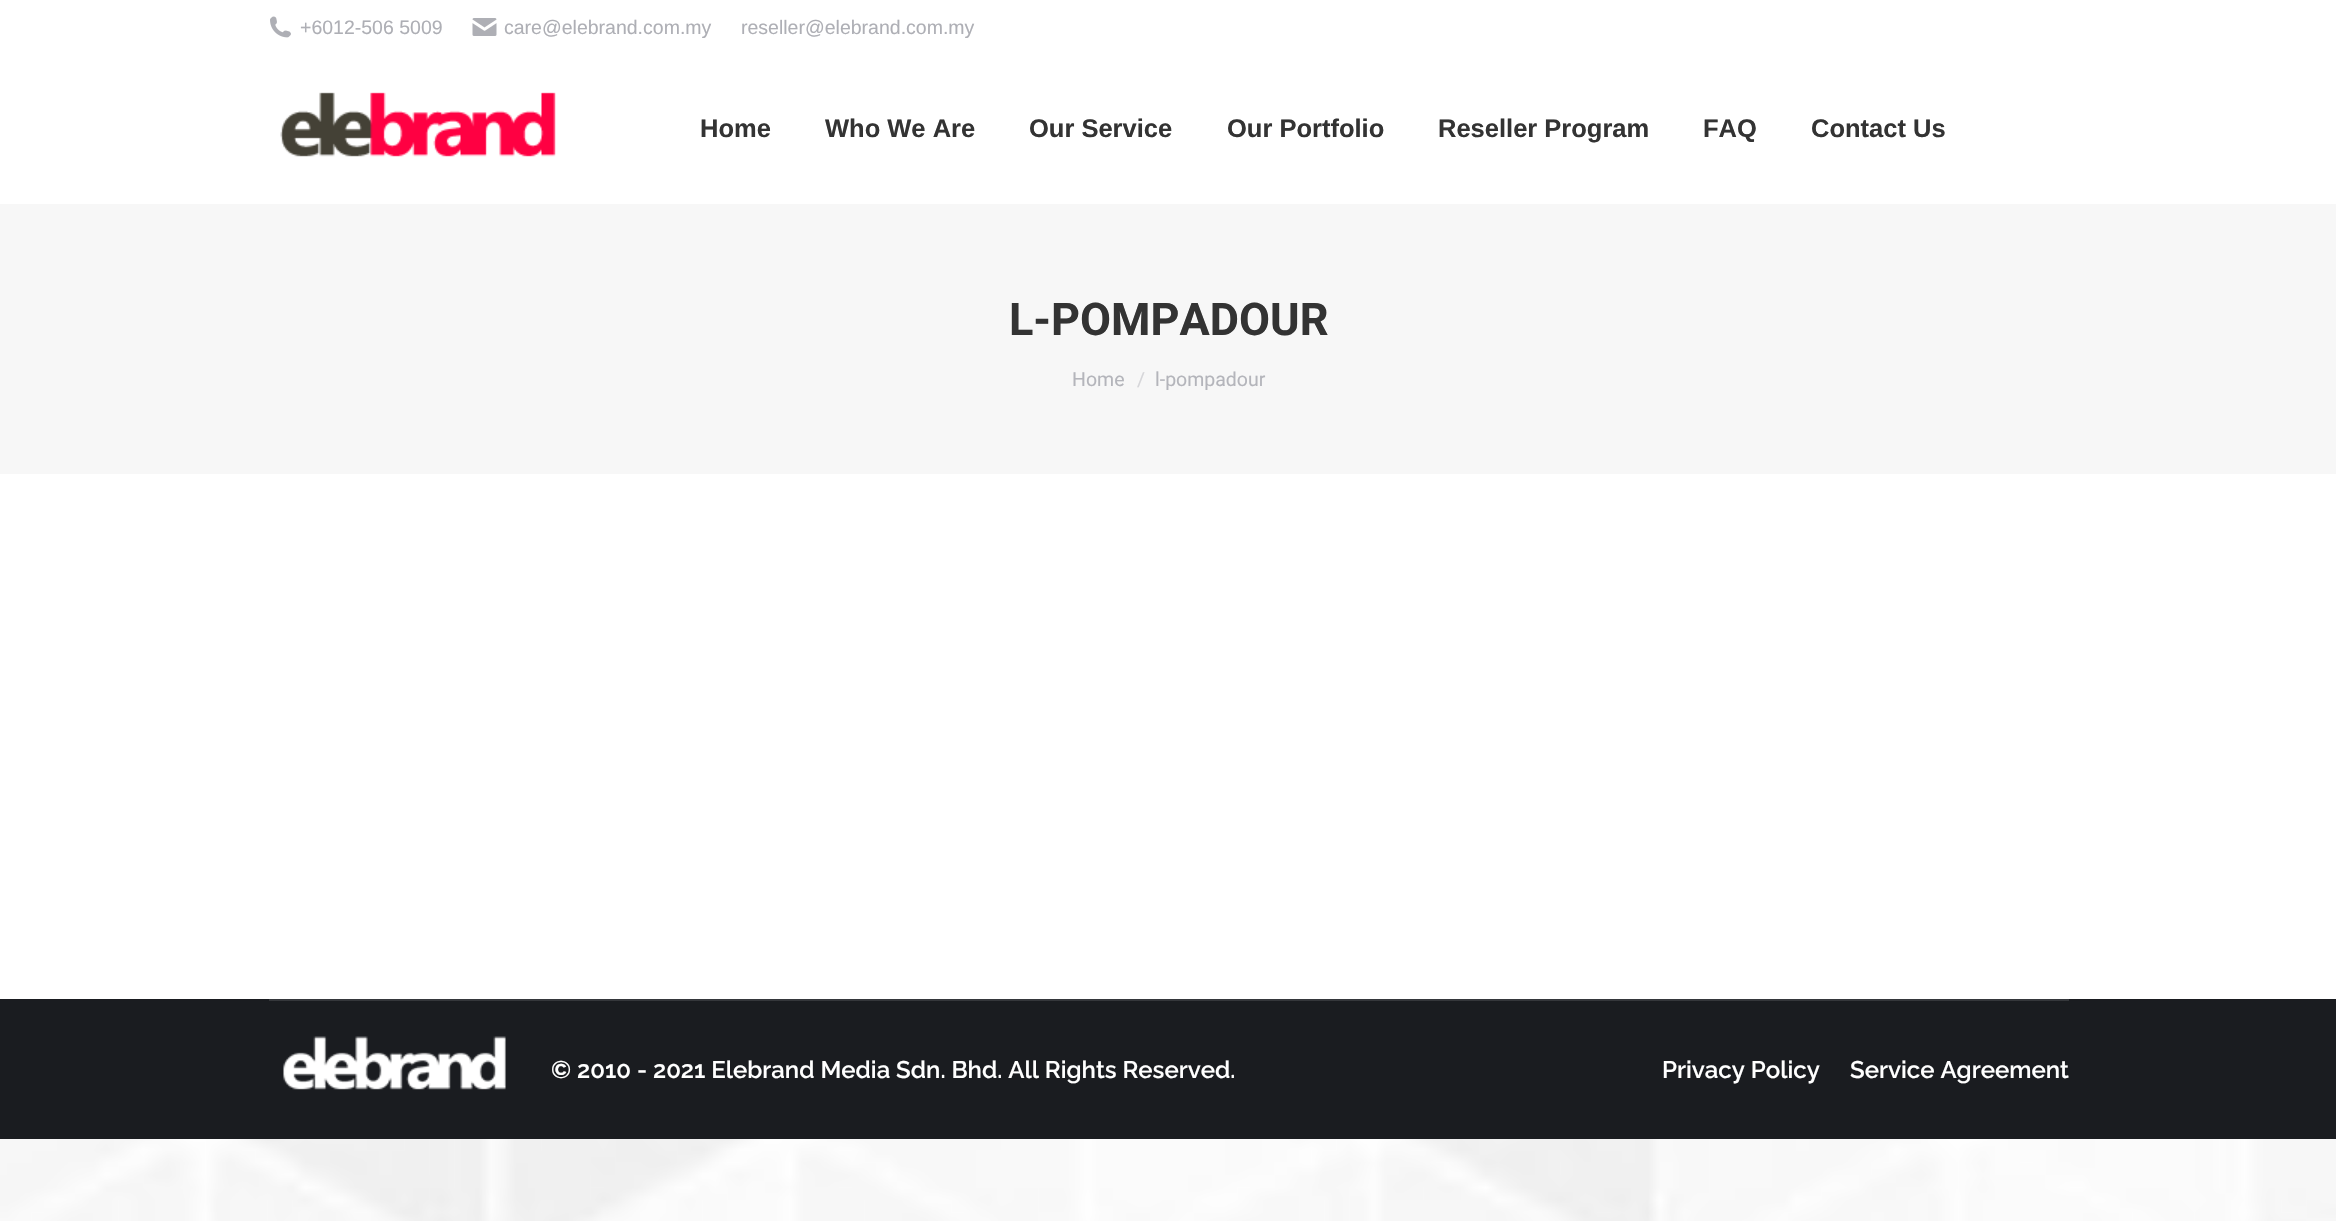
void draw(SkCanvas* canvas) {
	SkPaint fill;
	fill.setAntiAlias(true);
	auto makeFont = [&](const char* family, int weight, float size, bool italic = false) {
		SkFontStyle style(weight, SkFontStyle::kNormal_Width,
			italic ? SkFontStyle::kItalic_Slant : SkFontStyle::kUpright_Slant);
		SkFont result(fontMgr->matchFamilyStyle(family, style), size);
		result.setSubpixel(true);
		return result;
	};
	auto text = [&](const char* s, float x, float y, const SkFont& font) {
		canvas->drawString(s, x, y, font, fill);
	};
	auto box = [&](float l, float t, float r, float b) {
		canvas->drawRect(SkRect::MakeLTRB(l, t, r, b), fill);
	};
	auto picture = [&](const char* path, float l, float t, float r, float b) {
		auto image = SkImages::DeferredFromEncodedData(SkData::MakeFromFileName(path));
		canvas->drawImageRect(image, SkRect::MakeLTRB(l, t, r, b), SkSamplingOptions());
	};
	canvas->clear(0xFFFFFFFF);
	picture("image0.png", 0, 1139, 2336, 1221);
	picture("image1.png", 270, 16, 291, 38);
	picture("image2.png", 472, 18, 497, 36);
	picture("image3.png", 280, 92, 556, 157);
	fill.setColor(0xFFF7F7F7);
	box(0, 204, 2336, 474);
	fill.setColor(0xFF1A1C20);
	box(0, 999, 2336, 1139);
	fill.setColor(0xFF35373B);
	box(269, 999, 2069, 1001);
	picture("image4.png", 283, 1036, 506, 1090);
	auto font1 = makeFont("Liberation Sans", 400, 19.5f);
	fill.setColor(0xFFAEAFB5);
	text("+6012-506 5009", 300, 34, font1);
	text("care@elebrand.com.my", 504, 34, font1);
	text("reseller@elebrand.com.my", 741, 34, font1);
	auto font2 = makeFont("Liberation Sans", 700, 25.5f);
	fill.setColor(0xFF333333);
	text("Home", 700, 137, font2);
	text("Who We Are", 825, 137, font2);
	text("Our Service", 1029, 137, font2);
	text("Our Portfolio", 1227, 137, font2);
	text("Reseller Program", 1438, 137, font2);
	text("FAQ", 1703, 137, font2);
	text("Contact Us", 1811, 137, font2);
	auto font3 = makeFont("Roboto", 700, 45);
	text("L-POMPADOUR", 1009, 335, font3);
	auto font4 = makeFont("Roboto", 400, 19.5f);
	fill.setColor(0xFFB4B5BB);
	text("Home", 1072, 386, font4);
	fill.setColor(0xFFD6D6D9);
	text("/", 1137, 386, font4);
	fill.setColor(0xFFB4B5BB);
	text("l-pompadour", 1155, 386, font4);
	auto font5 = makeFont("Raleway", 600, 24);
	fill.setColor(0xFFFFFFFF);
	text("© 2010 - 2021 Elebrand Media Sdn. Bhd. All Rights Reserved.", 551, 1078, font5);
	text("Privacy Policy", 1662, 1078, font5);
	text("Service Agreement", 1850, 1078, font5);
}
